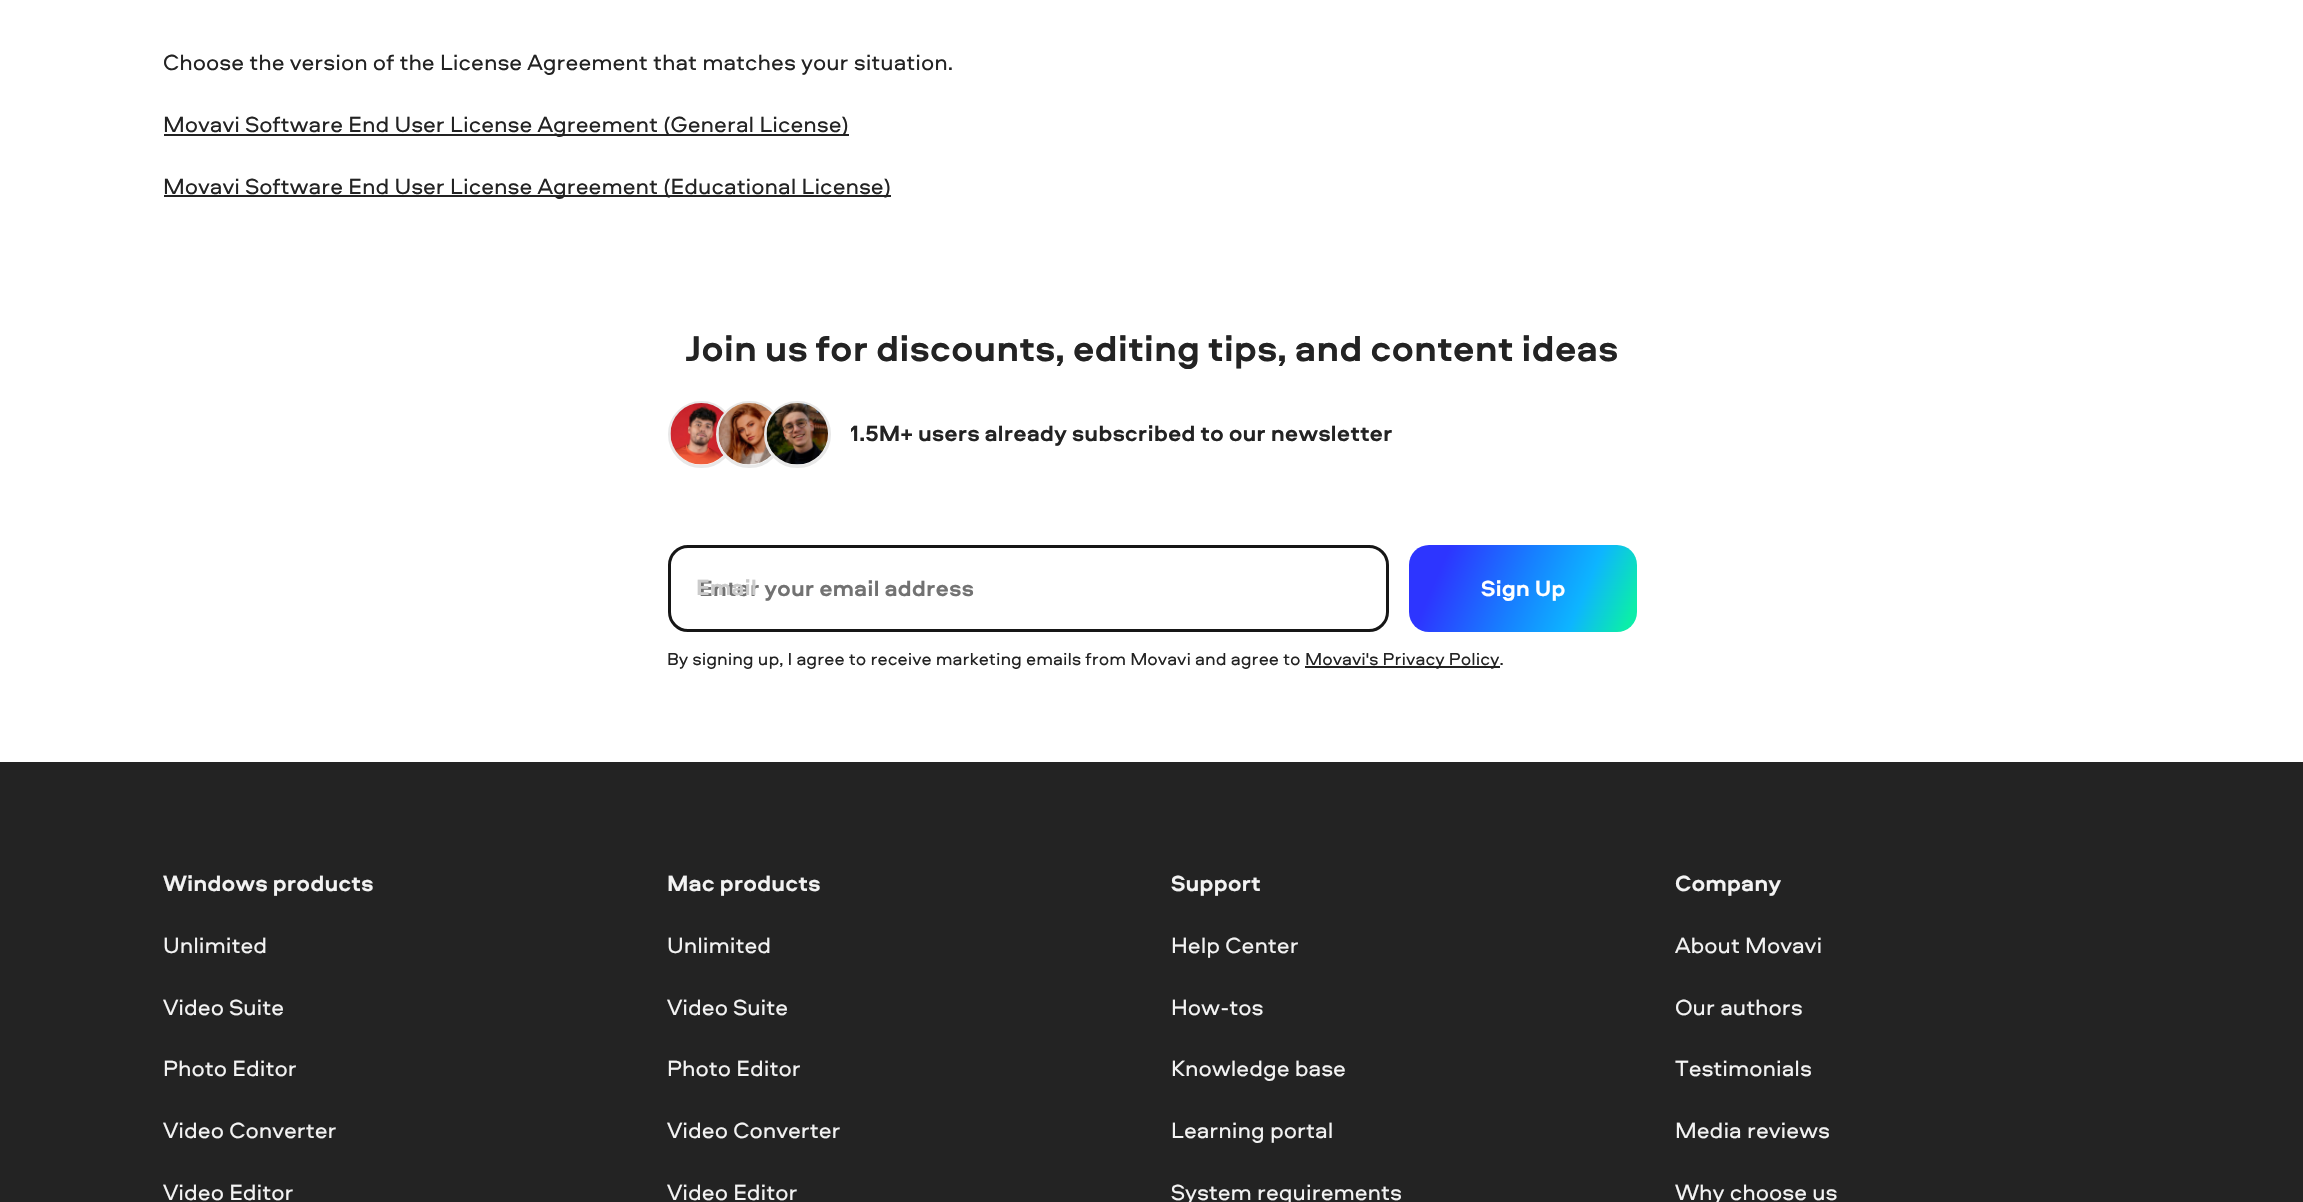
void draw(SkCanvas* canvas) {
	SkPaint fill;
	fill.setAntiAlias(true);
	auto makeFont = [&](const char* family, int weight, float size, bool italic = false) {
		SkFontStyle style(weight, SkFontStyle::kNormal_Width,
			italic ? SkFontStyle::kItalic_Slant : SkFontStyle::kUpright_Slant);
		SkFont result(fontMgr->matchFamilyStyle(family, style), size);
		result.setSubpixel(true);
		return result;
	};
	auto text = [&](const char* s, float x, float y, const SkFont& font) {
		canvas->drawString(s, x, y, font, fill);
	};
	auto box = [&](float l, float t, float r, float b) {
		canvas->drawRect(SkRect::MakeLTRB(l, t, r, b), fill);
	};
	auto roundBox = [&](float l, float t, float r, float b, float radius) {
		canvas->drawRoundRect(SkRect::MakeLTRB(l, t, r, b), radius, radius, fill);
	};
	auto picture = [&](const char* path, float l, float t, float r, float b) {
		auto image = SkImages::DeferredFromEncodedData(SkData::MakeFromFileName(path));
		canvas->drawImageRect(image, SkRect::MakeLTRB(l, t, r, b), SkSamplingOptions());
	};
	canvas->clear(0xFFFFFFFF);
	fill.setColor(0xFF232323);
	box(164, 134, 849, 136);
	box(164, 195, 891, 197);
	fill.setStyle(SkPaint::kStroke_Style);
	fill.setStrokeWidth(3);
	fill.setColor(0xFFE8E8E8);
	canvas->drawCircle(701.5f, 434.5f, 32, fill);
	picture("image0.png", 670, 403, 726, 465);
	canvas->drawCircle(749.5f, 434.5f, 32, fill);
	picture("image1.png", 718, 403, 774, 465);
	canvas->drawCircle(797.5f, 434.5f, 32, fill);
	picture("image2.png", 766, 403, 828, 465);
	fill.setColor(0xFF161616);
	canvas->drawRoundRect(SkRect::MakeLTRB(669.5f, 546.5f, 1387.5f, 630.5f), 18.5f, 18.5f, fill);
	fill.setStyle(SkPaint::kFill_Style);
	{
		const SkColor colors[] = {0xFF2D35FF, 0xFF1780FF, 0xFF0DB5FF, 0xFF0CEDAA};
		const float stops[] = {0.16f, 0.49f, 0.74f, 0.95f};
		const SkPoint ends[] = {{1410, 540}, {1635, 636}};
		fill.setShader(SkGradientShader::MakeLinear(ends, colors, stops, 4, SkTileMode::kClamp));
		fill.setAlpha(255);
	}
	roundBox(1409, 545, 1637, 632, 20);
	fill.setShader(nullptr);
	fill.setColor(0xFF232323);
	box(1305, 666, 1500, 668);
	box(0, 762, 2303, 1202);
	auto font1 = makeFont("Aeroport", 400, 22.8f);
	text("Choose the version of the License Agreement that matches your situation.", 163, 70, font1);
	text("Movavi Software End User License Agreement (General License)", 163, 132, font1);
	text("Movavi Software End User License Agreement (Educational License)", 163, 194, font1);
	auto font2 = makeFont("Aeroport", 700, 37.2f);
	text("Join us for discounts, editing tips, and content ideas", 686, 361, font2);
	auto font3 = makeFont("Aeroport", 700, 22.8f);
	text("1.5M+ users already subscribed to our newsletter", 850, 441, font3);
	fill.setColor(0xFF727272);
	text("Enter your email address", 699, 596, font3);
	fill.setColor(0xFFCBCBCB);
	text("Email", 696, 595, font3);
	fill.setColor(0xFFFFFFFF);
	text("Sign Up", 1481, 596, font3);
	auto font4 = makeFont("Aeroport", 400, 18);
	fill.setColor(0xFF232323);
	text("By signing up, I agree to receive marketing emails from Movavi and agree to", 667, 665, font4);
	text("Movavi's Privacy Policy.", 1305, 665, font4);
	fill.setColor(0xFFF3F3F3);
	text("Windows products", 163, 891, font3);
	text("Unlimited", 163, 953, font1);
	text("Video Suite", 163, 1015, font1);
	text("Photo Editor", 163, 1076, font1);
	text("Video Converter", 163, 1138, font1);
	text("Video Editor", 163, 1200, font1);
	text("Mac products", 667, 891, font3);
	text("Unlimited", 667, 953, font1);
	text("Video Suite", 667, 1015, font1);
	text("Photo Editor", 667, 1076, font1);
	text("Video Converter", 667, 1138, font1);
	text("Video Editor", 667, 1200, font1);
	text("Support", 1171, 891, font3);
	text("Help Center", 1171, 953, font1);
	text("How-tos", 1171, 1015, font1);
	text("Knowledge base", 1171, 1076, font1);
	text("Learning portal", 1171, 1138, font1);
	text("System requirements", 1171, 1200, font1);
	text("Company", 1675, 891, font3);
	text("About Movavi", 1675, 953, font1);
	text("Our authors", 1675, 1015, font1);
	text("Testimonials", 1675, 1076, font1);
	text("Media reviews", 1675, 1138, font1);
	text("Why choose us", 1675, 1200, font1);
}
